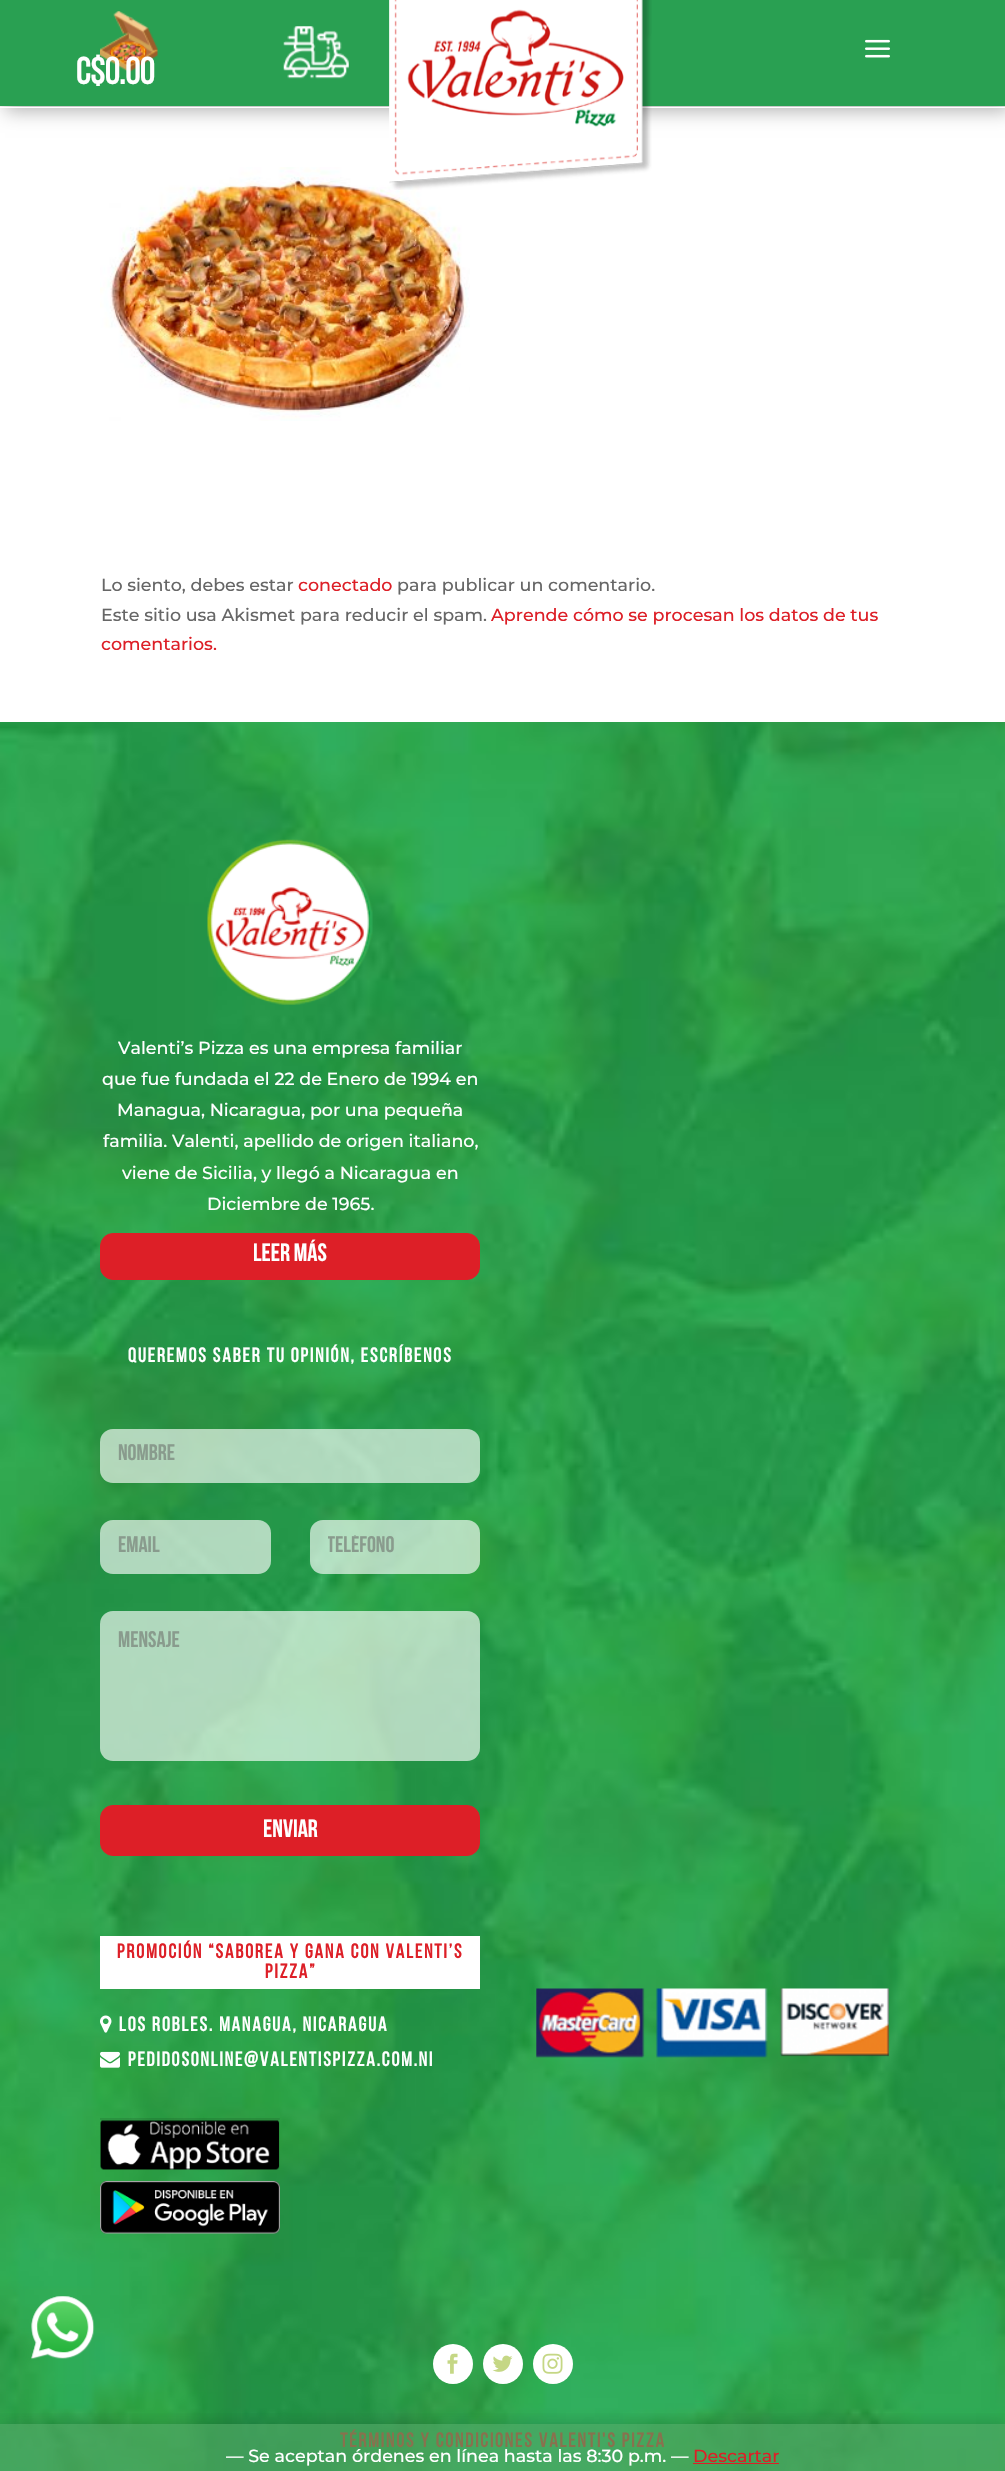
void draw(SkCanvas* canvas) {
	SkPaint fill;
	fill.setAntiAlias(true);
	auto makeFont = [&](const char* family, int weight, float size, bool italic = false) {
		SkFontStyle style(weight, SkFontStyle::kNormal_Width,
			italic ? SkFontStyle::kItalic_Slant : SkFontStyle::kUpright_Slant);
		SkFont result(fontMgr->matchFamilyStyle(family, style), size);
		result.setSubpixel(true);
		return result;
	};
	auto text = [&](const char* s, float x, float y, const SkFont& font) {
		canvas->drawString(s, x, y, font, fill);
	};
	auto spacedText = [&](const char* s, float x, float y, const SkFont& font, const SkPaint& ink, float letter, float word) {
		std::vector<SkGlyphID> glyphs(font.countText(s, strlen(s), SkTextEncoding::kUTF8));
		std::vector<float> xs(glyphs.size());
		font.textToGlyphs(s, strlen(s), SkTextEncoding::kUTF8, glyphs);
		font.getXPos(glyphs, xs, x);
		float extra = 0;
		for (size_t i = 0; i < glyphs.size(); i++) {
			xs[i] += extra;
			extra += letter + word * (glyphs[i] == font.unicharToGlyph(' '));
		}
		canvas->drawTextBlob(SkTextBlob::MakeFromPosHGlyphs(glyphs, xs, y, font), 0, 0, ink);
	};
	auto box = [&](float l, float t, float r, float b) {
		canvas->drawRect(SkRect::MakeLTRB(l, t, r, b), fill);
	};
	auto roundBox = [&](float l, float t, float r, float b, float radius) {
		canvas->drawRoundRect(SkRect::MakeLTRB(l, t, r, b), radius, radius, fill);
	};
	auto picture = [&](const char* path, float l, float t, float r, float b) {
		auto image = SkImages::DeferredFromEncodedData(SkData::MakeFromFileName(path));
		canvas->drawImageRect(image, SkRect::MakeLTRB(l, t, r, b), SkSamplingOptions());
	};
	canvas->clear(0xFFFFFFFF);
	picture("image6.png", 0, 722, 1005, 2471);
	picture("image0.png", 31, 2296, 95, 2360);
	fill.setColor(0x4D000000);
	fill.setMaskFilter(SkMaskFilter::MakeBlur(kNormal_SkBlurStyle, 9));
	canvas->drawRect(SkRect::MakeLTRB(5, 5, 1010, 111), fill);
	fill.setMaskFilter(nullptr);
	fill.setStyle(SkPaint::kStroke_Style);
	fill.setStrokeWidth(1);
	fill.setColor(0xFFFFFFFF);
	canvas->drawRect(SkRect::MakeLTRB(-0.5f, -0.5f, 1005.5f, 107.5f), fill);
	fill.setStyle(SkPaint::kFill_Style);
	fill.setColor(0xFF29A052);
	box(0, 0, 1005, 106);
	picture("image1.png", 100, 11, 158, 72);
	picture("image2.png", 283, 26, 349, 79);
	picture("image5.png", 100, 167, 470, 421);
	picture("image3.png", 389, 0, 652, 190);
	picture("image4.png", 865, 39, 890, 58);
	picture("image7.png", 207, 839, 373, 1005);
	fill.setColor(0xFFDD1F27);
	canvas->drawRoundRect(SkRect::MakeLTRB(100.5f, 1233.5f, 479.5f, 1279.5f), 12.5f, 12.5f, fill);
	fill.setStyle(SkPaint::kStroke_Style);
	canvas->drawRoundRect(SkRect::MakeLTRB(100.5f, 1233.5f, 479.5f, 1279.5f), 12.5f, 12.5f, fill);
	fill.setStyle(SkPaint::kFill_Style);
	fill.setColor(0xA3FFFFFF);
	roundBox(100, 1429, 480, 1483, 13);
	roundBox(100, 1520, 271, 1574, 13);
	roundBox(310, 1520, 480, 1574, 13);
	roundBox(100, 1611, 480, 1761, 13);
	fill.setColor(0xFFDD1F27);
	canvas->drawRoundRect(SkRect::MakeLTRB(100.5f, 1805.5f, 479.5f, 1855.5f), 12.5f, 12.5f, fill);
	fill.setStyle(SkPaint::kStroke_Style);
	canvas->drawRoundRect(SkRect::MakeLTRB(100.5f, 1805.5f, 479.5f, 1855.5f), 12.5f, 12.5f, fill);
	fill.setStyle(SkPaint::kFill_Style);
	fill.setColor(0xFFFFFFFF);
	box(100, 1936, 480, 1989);
	picture("image8.png", 100, 2015, 112, 2033);
	picture("image9.png", 100, 2051, 120, 2068);
	picture("image10.png", 536, 1988, 889, 2058);
	picture("image11.png", 100, 2118, 280, 2170);
	picture("image12.png", 100, 2181, 280, 2234);
	canvas->drawCircle(453, 2364, 20, fill);
	picture("image13.png", 447, 2353, 458, 2374);
	canvas->drawCircle(503, 2364, 20, fill);
	picture("image14.png", 492, 2355, 513, 2372);
	canvas->drawCircle(553, 2364, 20, fill);
	picture("image15.png", 542, 2353, 563, 2374);
	canvas->save();
	canvas->clipRect(SkRect::MakeLTRB(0, 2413, 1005, 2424));
	fill.setColor(0x33000000);
	fill.setMaskFilter(SkMaskFilter::MakeBlur(kNormal_SkBlurStyle, 9));
	canvas->drawRect(SkRect::MakeLTRB(0, 2425, 1005, 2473), fill);
	fill.setMaskFilter(nullptr);
	canvas->restore();
	auto font1 = makeFont("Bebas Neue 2", 700, 37.5f);
	fill.setColor(0xFFFFFFFF);
	text("C$0.00", 76, 84, font1);
	auto font2 = makeFont("Montserrat", 500, 17.5f);
	fill.setColor(0xFF666666);
	text("Lo siento, debes estar", 101, 591, font2);
	fill.setColor(0xFFDD1F27);
	text("conectado", 298, 591, font2);
	fill.setColor(0xFF666666);
	text("para publicar un comentario.", 397, 591, font2);
	text("Este sitio usa Akismet para reducir el spam.", 101, 621, font2);
	fill.setColor(0xFFDD1F27);
	text("Aprende cómo se procesan los datos de tus", 491, 621, font2);
	text("comentarios.", 101, 650, font2);
	fill.setColor(0xFFFFFFFF);
	text("Valenti’s Pizza es una empresa familiar", 118, 1054, font2);
	text("que fue fundada el 22 de Enero de 1994 en", 102, 1085, font2);
	text("Managua, Nicaragua, por una pequeña", 117, 1116, font2);
	text("familia. Valenti, apellido de origen italiano,", 103, 1147, font2);
	text("viene de Sicilia, y llegó a Nicaragua en", 122, 1179, font2);
	text("Diciembre de 1965.", 207, 1210, font2);
	auto font3 = makeFont("Bebas Neue", 700, 25);
	text("LEER MáS", 253, 1261, font3);
	auto font4 = makeFont("Bebas Neue 2", 700, 20);
	spacedText("QUEREMOS SABER TU OPINIóN, ESCRíBENOS", 128, 1362, font4, fill, 2, 0);
	auto font5 = makeFont("Bebas Neue", 700, 22.5f);
	fill.setColor(0xFF899B8D);
	text("NOMBRE", 118, 1460, font5);
	text("EMAIL", 118, 1552, font5);
	canvas->save();
	canvas->clipRect(SkRect::MakeLTRB(328, 1535, 463, 1558));
	text("TELéFONO", 327, 1552, font5);
	canvas->restore();
	text("MENSAJE", 118, 1647, font5);
	fill.setColor(0xFFFFFFFF);
	text("Enviar", 263, 1837, font3);
	fill.setColor(0xFFDD1F27);
	spacedText("PROMOCIÓN “SABOREA Y GANA CON VALENTI’S", 117, 1958, font4, fill, 2, 0);
	spacedText("PIZZA”", 265, 1978, font4, fill, 2, 0);
	fill.setColor(0xFFFFFFFF);
	spacedText("LOS ROBLES. MANAGUA, NICARAGUA", 119, 2031, font4, fill, 2, 0);
	spacedText("pedidosonline@valentispizza.com.ni", 128, 2066, font4, fill, 2, 0);
	fill.setColor(0xFFDD1F27);
	spacedText("Términos y Condiciones VALENTI'S PIZZA", 340, 2447, font4, fill, 2, 0);
	fill.setColor(0x9C52A565);
	box(0, 2424, 1005, 2471);
	fill.setColor(0xFFFFFFFF);
	text("— Se aceptan órdenes en línea hasta las 8:30 p.m. —", 226, 2462, font2);
	fill.setColor(0xFFDD1F27);
	text("Descartar", 693, 2462, font2);
	box(693, 2463, 779, 2464);
}
